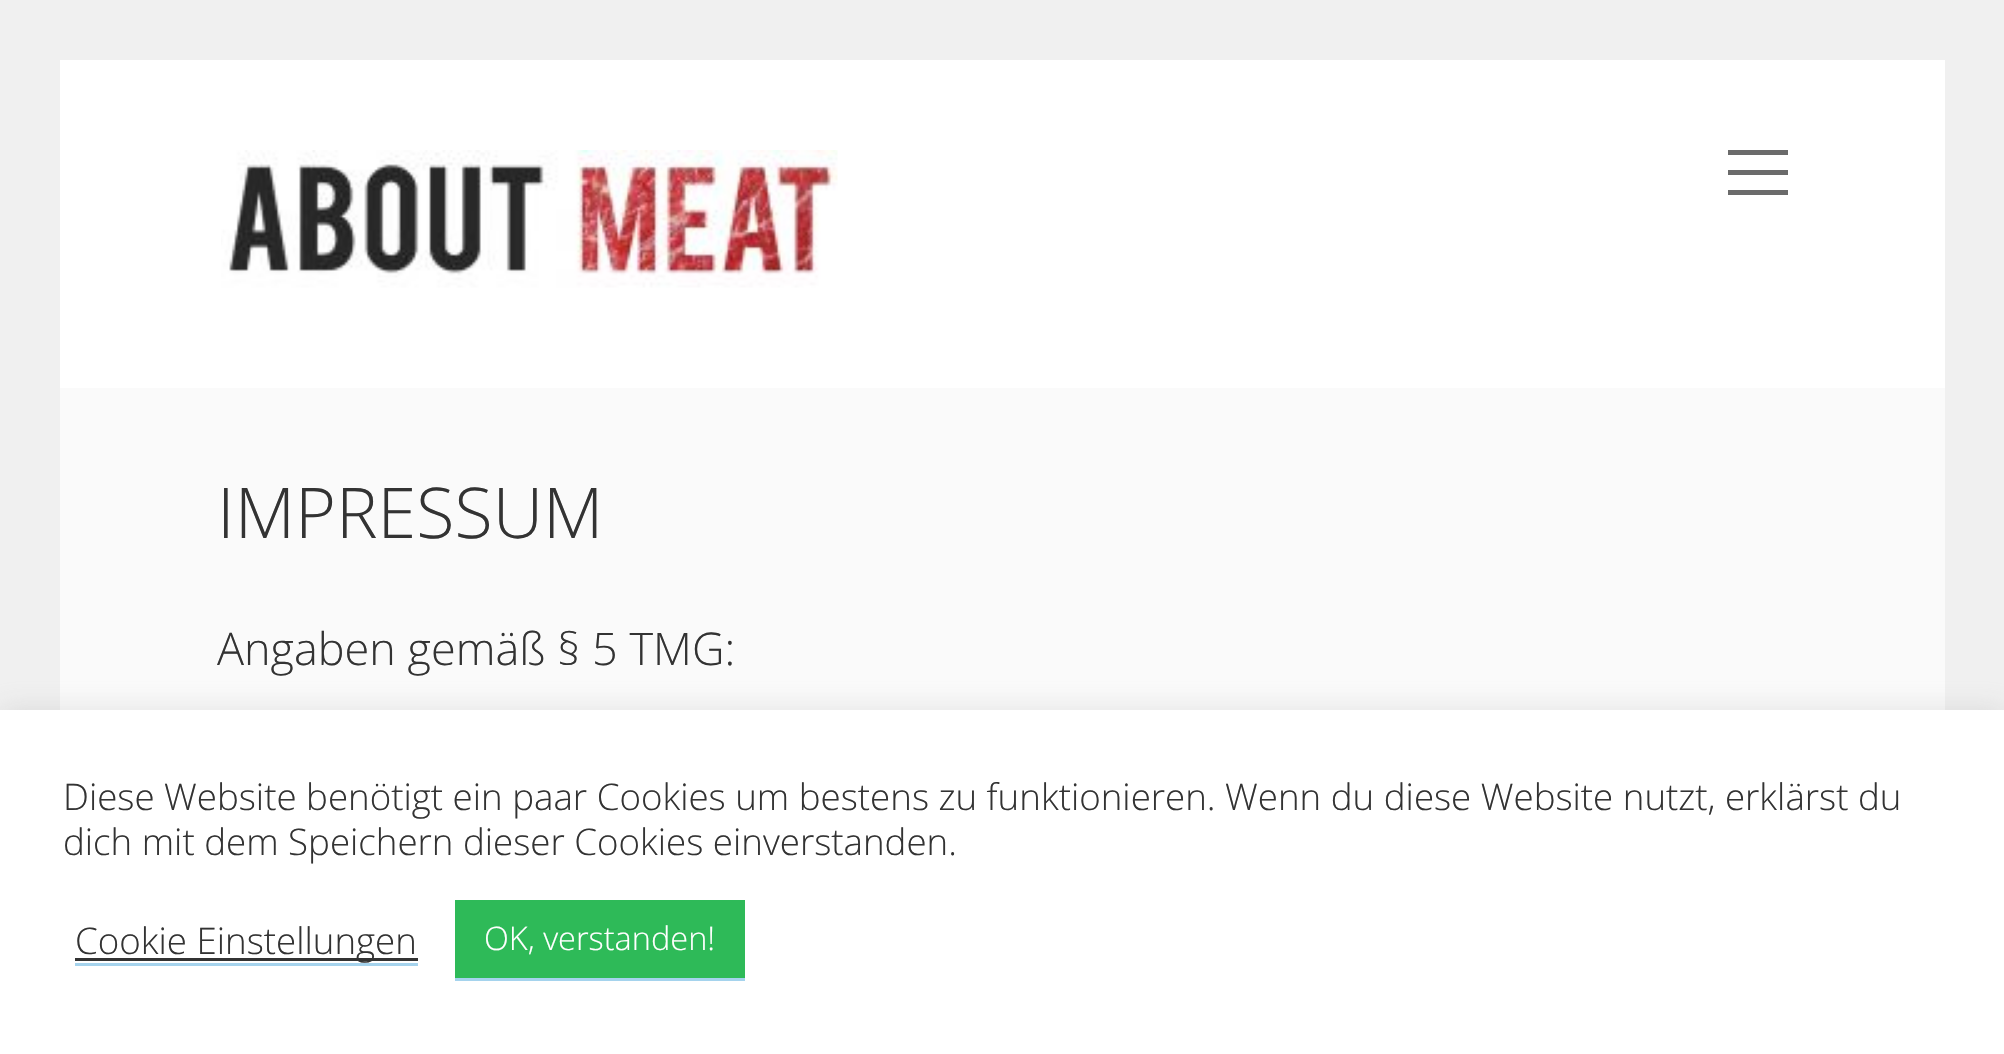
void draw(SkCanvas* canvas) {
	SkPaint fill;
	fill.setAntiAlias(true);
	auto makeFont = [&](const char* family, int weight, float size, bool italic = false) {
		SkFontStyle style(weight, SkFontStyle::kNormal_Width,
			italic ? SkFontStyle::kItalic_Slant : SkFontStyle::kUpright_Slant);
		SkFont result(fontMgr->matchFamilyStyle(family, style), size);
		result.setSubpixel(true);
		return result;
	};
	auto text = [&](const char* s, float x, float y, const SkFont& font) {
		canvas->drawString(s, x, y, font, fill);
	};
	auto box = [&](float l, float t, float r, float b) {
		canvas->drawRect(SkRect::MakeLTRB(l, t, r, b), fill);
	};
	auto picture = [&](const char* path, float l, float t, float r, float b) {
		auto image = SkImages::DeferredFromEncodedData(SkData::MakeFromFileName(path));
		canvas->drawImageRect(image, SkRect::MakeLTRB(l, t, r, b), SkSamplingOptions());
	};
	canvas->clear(0xFFF0F0F0);
	fill.setColor(0xFFFFFFFF);
	box(60, 60, 1945, 388);
	picture("image0.png", 221, 150, 838, 288);
	fill.setColor(0xFF6B6B6B);
	box(1728, 150, 1788, 155);
	box(1728, 170, 1788, 175);
	box(1728, 190, 1788, 195);
	fill.setColor(0xFFFAFAFA);
	box(60, 388, 1945, 710);
	fill.setColor(0x4DACABAB);
	fill.setMaskFilter(SkMaskFilter::MakeBlur(kNormal_SkBlurStyle, 12.5f));
	canvas->drawRect(SkRect::MakeLTRB(0, 708, 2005, 1053), fill);
	fill.setMaskFilter(nullptr);
	fill.setColor(0xFFFFFFFF);
	box(0, 710, 2004, 1054);
	fill.setColor(0xFFA5D3ED);
	box(75, 963, 418, 966);
	fill.setColor(0xFF333333);
	box(75, 958, 418, 961);
	fill.setColor(0xFF2EBA58);
	box(455, 900, 745, 978);
	fill.setColor(0xFFA5D3ED);
	box(455, 978, 745, 981);
	auto font1 = makeFont("Open Sans", 300, 70);
	fill.setColor(0xFF333333);
	text("IMPRESSUM", 217, 538, font1);
	auto font2 = makeFont("Open Sans", 300, 45);
	text("Angaben gemäß § 5 TMG:", 217, 665, font2);
	auto font3 = makeFont("Open Sans", 300, 36.67f);
	text("Diese Website benötigt ein paar Cookies um bestens zu funktionieren. Wenn du diese Website nutzt, erklärst du", 63, 810, font3);
	text("dich mit dem Speichern dieser Cookies einverstanden.", 63, 855, font3);
	text("Cookie Einstellungen", 75, 954, font3);
	auto font4 = makeFont("Open Sans", 300, 32.5f);
	fill.setColor(0xFFFFFFFF);
	text("OK, verstanden!", 484, 950, font4);
}
